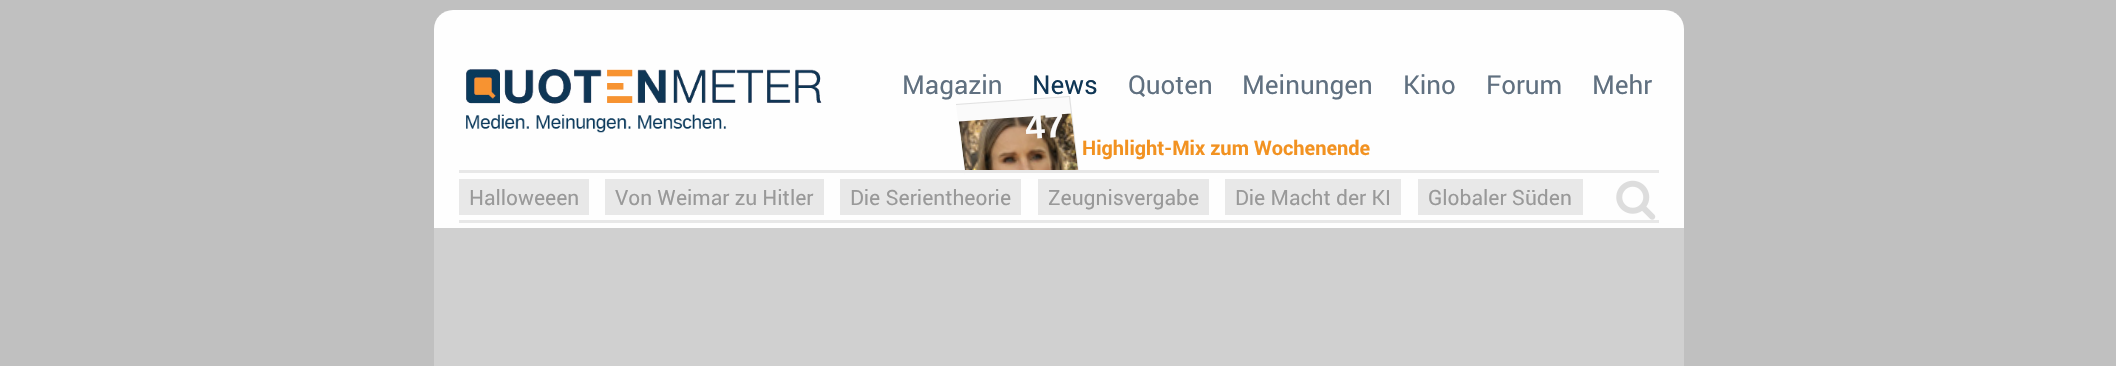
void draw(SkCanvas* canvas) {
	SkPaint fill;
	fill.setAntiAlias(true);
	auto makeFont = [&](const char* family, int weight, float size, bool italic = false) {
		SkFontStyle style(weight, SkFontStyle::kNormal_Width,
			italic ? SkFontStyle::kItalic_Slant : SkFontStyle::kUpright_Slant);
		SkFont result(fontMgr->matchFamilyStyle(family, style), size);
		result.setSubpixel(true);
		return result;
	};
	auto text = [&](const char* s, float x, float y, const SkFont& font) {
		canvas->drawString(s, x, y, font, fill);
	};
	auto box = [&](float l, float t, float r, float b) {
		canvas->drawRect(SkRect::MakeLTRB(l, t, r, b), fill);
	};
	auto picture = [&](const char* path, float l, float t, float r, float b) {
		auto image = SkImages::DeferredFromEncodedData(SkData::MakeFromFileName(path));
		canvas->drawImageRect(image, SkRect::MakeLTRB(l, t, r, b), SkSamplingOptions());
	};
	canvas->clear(0xFFC0C0C0);
	fill.setColor(0xFFFEFEFE);
	box(434, 170, 1684, 228);
	canvas->drawPath(SkPathBuilder().moveTo(453, 10).lineTo(1665, 10).cubicTo(1675.5f, 10, 1684, 18.5f, 1684, 29).lineTo(1684, 170).lineTo(434, 170).lineTo(434, 29).cubicTo(434, 18.5f, 442.5f, 10, 453, 10).close().detach(), fill);
	picture("image0.png", 466, 69, 822, 133);
	canvas->save();
	canvas->clipRect(SkRect::MakeLTRB(953, 93, 1371, 175));
	fill.setColor(0xFFFAFAFA);
	canvas->drawPath(SkPathBuilder().moveTo(956, 104).lineTo(1070, 96).lineTo(1086, 232).lineTo(973, 240).close().detach(), fill);
	canvas->restore();
	fill.setColor(0xFFE1E1E1);
	canvas->drawPath(SkPathBuilder().moveTo(956, 104).lineTo(1070, 96).lineTo(1069, 97).lineTo(956, 105).close().detach(), fill);
	canvas->save();
	canvas->clipRect(SkRect::MakeLTRB(953, 93, 1371, 175));
	fill.setColor(0x1A000000);
	canvas->drawPath(SkPathBuilder().moveTo(1070, 96).lineTo(1086, 232).lineTo(1085, 232).lineTo(1069, 97).close().detach(), fill);
	canvas->restore();
	picture("image1.png", 958, 113, 1078, 170);
	fill.setColor(0xFFFEFEFE);
	box(965, 173, 1080, 175);
	fill.setColor(0xFFE8E8E8);
	box(459, 170, 1659, 173);
	box(459, 220, 1659, 223);
	box(459, 179, 589, 215);
	box(605, 179, 824, 215);
	box(840, 179, 1021, 215);
	box(1038, 179, 1209, 215);
	box(1225, 179, 1401, 215);
	box(1418, 179, 1583, 215);
	picture("image2.png", 1616, 180, 1656, 220);
	fill.setColor(0xFFD0D0D0);
	box(434, 228, 1684, 366);
	auto font1 = makeFont("Roboto", 400, 26);
	fill.setColor(0xFF607080);
	text("Magazin", 902, 94, font1);
	fill.setColor(0xFF0F3655);
	text("News", 1032, 94, font1);
	fill.setColor(0xFF607080);
	text("Quoten", 1128, 94, font1);
	text("Meinungen", 1242, 94, font1);
	text("Kino", 1403, 94, font1);
	text("Forum", 1486, 94, font1);
	text("Mehr", 1592, 94, font1);
	auto font2 = makeFont("Liberation Sans", 700, 35);
	fill.setColor(0xFFFAFAFA);
	canvas->save();
	canvas->rotate(-4, 1026, 139);
	text("47", 1026, 139, font2);
	canvas->restore();
	auto font3 = makeFont("Roboto", 700, 20);
	fill.setColor(0xFFF29221);
	text("Highlight-Mix zum Wochenende", 1082, 155, font3);
	auto font4 = makeFont("Roboto", 400, 21);
	fill.setColor(0xFF999999);
	text("Halloweeen", 469, 205, font4);
	text("Von Weimar zu Hitler", 615, 205, font4);
	text("Die Serientheorie", 850, 205, font4);
	text("Zeugnisvergabe", 1048, 205, font4);
	text("Die Macht der KI", 1235, 205, font4);
	text("Globaler Süden", 1428, 205, font4);
}
